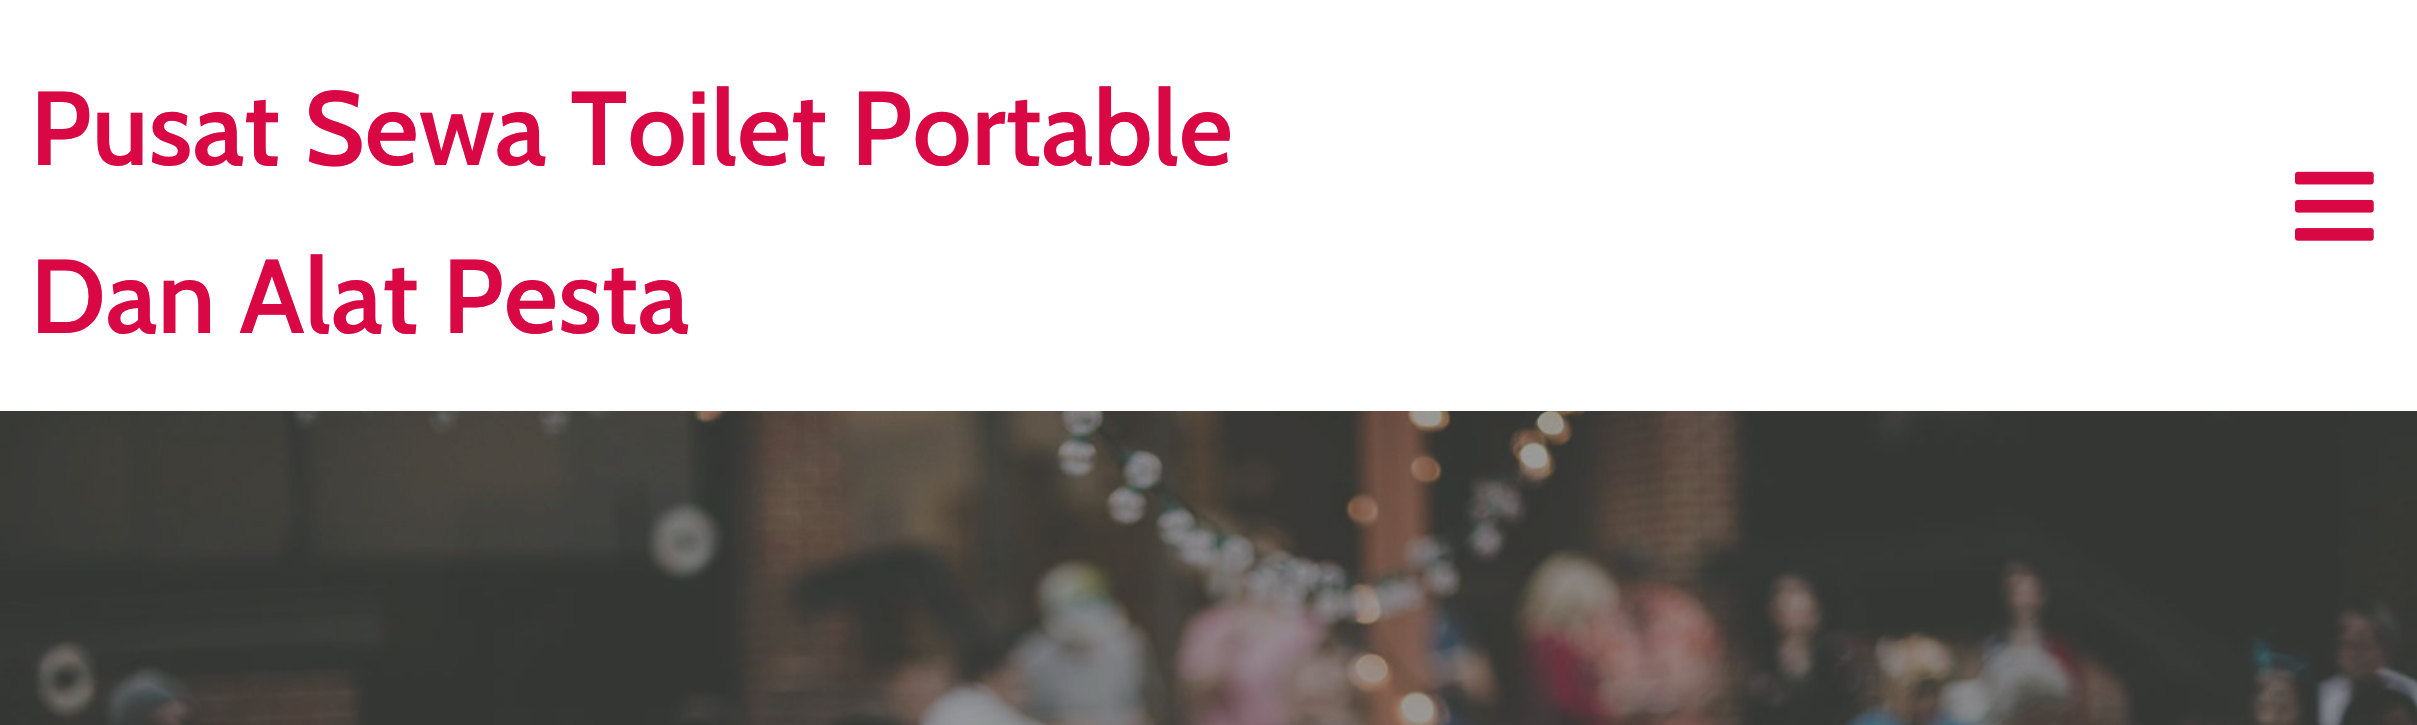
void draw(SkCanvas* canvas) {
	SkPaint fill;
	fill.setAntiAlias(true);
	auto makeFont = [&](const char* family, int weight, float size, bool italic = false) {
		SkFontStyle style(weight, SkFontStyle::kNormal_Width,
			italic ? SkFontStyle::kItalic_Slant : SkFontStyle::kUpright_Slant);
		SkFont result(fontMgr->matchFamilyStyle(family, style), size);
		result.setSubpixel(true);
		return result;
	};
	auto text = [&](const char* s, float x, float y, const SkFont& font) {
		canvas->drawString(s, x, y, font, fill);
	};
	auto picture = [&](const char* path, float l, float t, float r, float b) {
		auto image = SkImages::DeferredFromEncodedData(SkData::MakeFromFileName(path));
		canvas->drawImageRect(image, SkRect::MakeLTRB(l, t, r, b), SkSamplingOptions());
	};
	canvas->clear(0xFFFFFFFF);
	picture("image0.png", 2295, 171, 2374, 241);
	picture("image1.png", 0, 411, 2417, 725);
	auto font1 = makeFont("Cabin", 600, 105);
	fill.setColor(0xFFD90845);
	text("Pusat Sewa Toilet Portable", 30, 165, font1);
	text("Dan Alat Pesta", 30, 333, font1);
}
